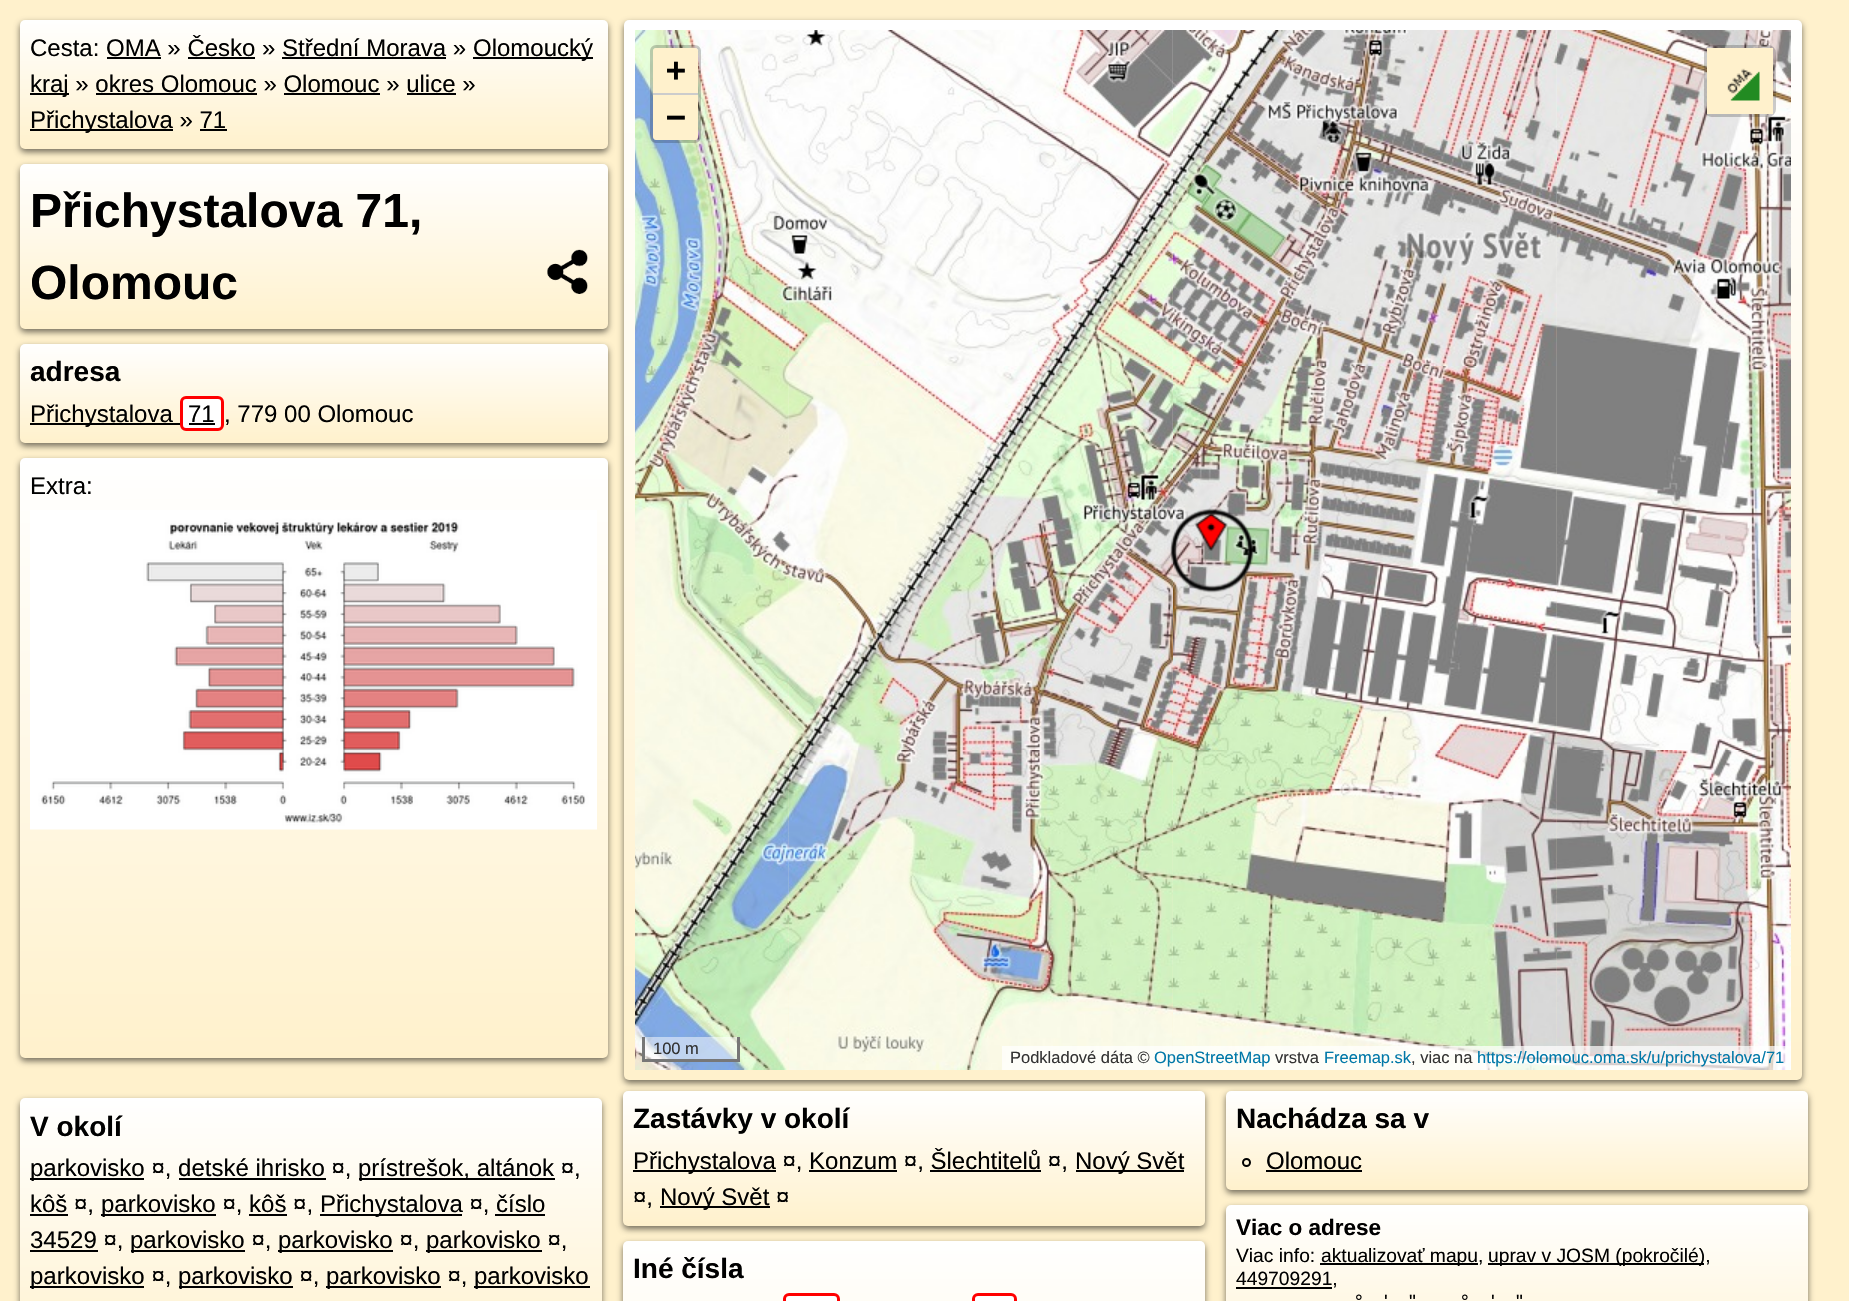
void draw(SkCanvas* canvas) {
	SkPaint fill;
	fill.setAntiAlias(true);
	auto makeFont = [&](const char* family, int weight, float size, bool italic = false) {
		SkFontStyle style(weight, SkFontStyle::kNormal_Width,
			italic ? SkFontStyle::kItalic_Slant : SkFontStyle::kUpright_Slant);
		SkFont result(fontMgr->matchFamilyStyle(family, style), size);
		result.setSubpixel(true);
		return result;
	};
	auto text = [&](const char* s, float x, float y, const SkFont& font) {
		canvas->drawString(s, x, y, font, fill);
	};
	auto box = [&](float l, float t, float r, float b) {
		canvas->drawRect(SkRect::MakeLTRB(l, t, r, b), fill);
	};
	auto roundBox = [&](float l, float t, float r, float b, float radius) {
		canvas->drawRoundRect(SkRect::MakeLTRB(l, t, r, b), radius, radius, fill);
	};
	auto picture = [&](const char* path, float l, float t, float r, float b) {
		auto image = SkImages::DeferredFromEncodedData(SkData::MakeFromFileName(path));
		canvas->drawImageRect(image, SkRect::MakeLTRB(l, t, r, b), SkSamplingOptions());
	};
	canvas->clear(0xFFFFF1CC);
	fill.setColor(0x8C000000);
	fill.setMaskFilter(SkMaskFilter::MakeBlur(kNormal_SkBlurStyle, 3));
	canvas->drawRoundRect(SkRect::MakeLTRB(20, 23, 608, 152), 5, 5, fill);
	fill.setMaskFilter(nullptr);
	{
		const SkColor colors[] = {0xFFFFFFFF, 0xFFFFF1CC};
		const float stops[] = {0, 1};
		const SkPoint ends[] = {{314, 19}, {314, 149}};
		fill.setShader(SkGradientShader::MakeLinear(ends, colors, stops, 2, SkTileMode::kClamp));
		fill.setAlpha(255);
	}
	roundBox(20, 20, 608, 149, 5);
	fill.setShader(nullptr);
	fill.setColor(0xFF000000);
	box(473, 57, 593, 59);
	box(107, 57, 161, 59);
	box(188, 57, 255, 59);
	box(282, 57, 446, 59);
	box(30, 93, 69, 95);
	box(96, 93, 257, 95);
	box(284, 93, 380, 95);
	box(407, 93, 456, 95);
	box(30, 129, 173, 131);
	box(200, 129, 227, 131);
	fill.setColor(0x8C000000);
	fill.setMaskFilter(SkMaskFilter::MakeBlur(kNormal_SkBlurStyle, 3));
	canvas->drawRoundRect(SkRect::MakeLTRB(20, 167, 608, 332), 5, 5, fill);
	fill.setMaskFilter(nullptr);
	{
		const SkColor colors[] = {0xFFFFFFFF, 0xFFFFF1CC};
		const float stops[] = {0, 1};
		const SkPoint ends[] = {{314, 163}, {314, 329}};
		fill.setShader(SkGradientShader::MakeLinear(ends, colors, stops, 2, SkTileMode::kClamp));
		fill.setAlpha(255);
	}
	roundBox(20, 164, 608, 329, 5);
	picture("image0.png", 547, 249, 588, 294);
	fill.setShader(nullptr);
	fill.setColor(0x8C000000);
	fill.setMaskFilter(SkMaskFilter::MakeBlur(kNormal_SkBlurStyle, 3));
	canvas->drawRoundRect(SkRect::MakeLTRB(20, 347, 608, 446), 5, 5, fill);
	fill.setMaskFilter(nullptr);
	{
		const SkColor colors[] = {0xFFFFFFFF, 0xFFFFF1CC};
		const float stops[] = {0, 1};
		const SkPoint ends[] = {{314, 343}, {314, 443}};
		fill.setShader(SkGradientShader::MakeLinear(ends, colors, stops, 2, SkTileMode::kClamp));
		fill.setAlpha(255);
	}
	roundBox(20, 344, 608, 443, 5);
	fill.setShader(nullptr);
	fill.setColor(0xFF000000);
	box(30, 423, 180, 425);
	fill.setColor(0xFFFFFFFF);
	canvas->drawRoundRect(SkRect::MakeLTRB(181.5f, 397.5f, 222.5f, 429.5f), 4.5f, 4.5f, fill);
	fill.setStyle(SkPaint::kStroke_Style);
	fill.setStrokeWidth(3);
	fill.setColor(0xFFFF0000);
	canvas->drawRoundRect(SkRect::MakeLTRB(181.5f, 397.5f, 222.5f, 429.5f), 4.5f, 4.5f, fill);
	fill.setStyle(SkPaint::kFill_Style);
	fill.setColor(0xFF000000);
	box(189, 423, 215, 425);
	fill.setColor(0x8C000000);
	fill.setMaskFilter(SkMaskFilter::MakeBlur(kNormal_SkBlurStyle, 3));
	canvas->drawRoundRect(SkRect::MakeLTRB(20, 461, 608, 1061), 5, 5, fill);
	fill.setMaskFilter(nullptr);
	{
		const SkColor colors[] = {0xFFFFFFFF, 0xFFFFF1CC};
		const float stops[] = {0, 1};
		const SkPoint ends[] = {{313, 458}, {314, 1058}};
		fill.setShader(SkGradientShader::MakeLinear(ends, colors, stops, 2, SkTileMode::kClamp));
		fill.setAlpha(255);
	}
	roundBox(20, 458, 608, 1058, 5);
	picture("image1.png", 30, 510, 597, 830);
	fill.setShader(nullptr);
	fill.setColor(0x8C000000);
	fill.setMaskFilter(SkMaskFilter::MakeBlur(kNormal_SkBlurStyle, 3));
	canvas->drawRoundRect(SkRect::MakeLTRB(624, 23, 1802, 1083), 5, 5, fill);
	fill.setMaskFilter(nullptr);
	{
		const SkColor colors[] = {0xFFFFFFFF, 0xFFFFF1CC};
		const float stops[] = {0, 1};
		const SkPoint ends[] = {{1213, 19}, {1213, 1080}};
		fill.setShader(SkGradientShader::MakeLinear(ends, colors, stops, 2, SkTileMode::kClamp));
		fill.setAlpha(255);
	}
	roundBox(624, 20, 1802, 1080, 5);
	picture("image3.png", 789, 30, 1173, 366);
	picture("image2.png", 635, 30, 790, 366);
	picture("image4.png", 1173, 30, 1557, 366);
	picture("image5.png", 1557, 30, 1791, 366);
	picture("image7.png", 789, 366, 1173, 750);
	picture("image6.png", 635, 366, 790, 750);
	picture("image8.png", 1173, 366, 1557, 750);
	picture("image9.png", 1557, 366, 1791, 750);
	picture("image11.png", 789, 750, 1173, 1070);
	picture("image10.png", 635, 750, 790, 1070);
	picture("image12.png", 1173, 750, 1557, 1070);
	picture("image13.png", 1557, 750, 1791, 1070);
	picture("image14.png", 1170, 508, 1254, 593);
	picture("image15.png", 1195, 513, 1228, 551);
	fill.setStyle(SkPaint::kStroke_Style);
	fill.setShader(nullptr);
	fill.setColor(0x33000000);
	canvas->drawRoundRect(SkRect::MakeLTRB(651.5f, 46.5f, 699.5f, 141.5f), 4.5f, 4.5f, fill);
	fill.setStyle(SkPaint::kFill_Style);
	fill.setColor(0xFFFFF1CC);
	canvas->drawPath(SkPathBuilder().moveTo(656, 48).lineTo(695, 48).cubicTo(696.5f, 48, 698, 49.5f, 698, 51).lineTo(698, 95).lineTo(653, 95).lineTo(653, 51).cubicTo(653, 49.5f, 654.5f, 48, 656, 48).close().detach(), fill);
	fill.setColor(0xFFCCCCCC);
	box(653, 93, 698, 95);
	fill.setColor(0xFFFFF1CC);
	canvas->drawPath(SkPathBuilder().moveTo(653, 95).lineTo(698, 95).lineTo(698, 137).cubicTo(698, 138.5f, 696.5f, 140, 695, 140).lineTo(656, 140).cubicTo(654.5f, 140, 653, 138.5f, 653, 137).close().detach(), fill);
	fill.setStyle(SkPaint::kStroke_Style);
	fill.setColor(0x33000000);
	canvas->drawRoundRect(SkRect::MakeLTRB(1705.5f, 46.5f, 1774.5f, 115.5f), 6.5f, 6.5f, fill);
	fill.setStyle(SkPaint::kFill_Style);
	fill.setColor(0xFFFFF1CC);
	box(1707, 48, 1773, 114);
	picture("image16.png", 1727, 68, 1760, 101);
	fill.setColor(0x80FFFFFF);
	box(645, 1037, 737, 1059);
	fill.setColor(0xFF777777);
	box(737, 1037, 740, 1062);
	box(642, 1059, 740, 1062);
	box(642, 1037, 645, 1062);
	fill.setColor(0xB3FFFFFF);
	box(1002, 1046, 1791, 1070);
	fill.setColor(0x8C000000);
	fill.setMaskFilter(SkMaskFilter::MakeBlur(kNormal_SkBlurStyle, 3));
	canvas->drawRoundRect(SkRect::MakeLTRB(20, 1101, 602, 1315), 5, 5, fill);
	fill.setMaskFilter(nullptr);
	{
		const SkColor colors[] = {0xFFFFFFFF, 0xFFFFF1CC};
		const float stops[] = {0, 1};
		const SkPoint ends[] = {{311, 1098}, {311, 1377}};
		fill.setShader(SkGradientShader::MakeLinear(ends, colors, stops, 2, SkTileMode::kClamp));
		fill.setAlpha(255);
	}
	roundBox(20, 1098, 602, 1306, 5);
	fill.setShader(nullptr);
	fill.setColor(0xFF000000);
	box(30, 1178, 144, 1180);
	box(359, 1178, 555, 1180);
	box(179, 1178, 326, 1180);
	box(30, 1214, 68, 1216);
	box(101, 1214, 216, 1216);
	box(320, 1214, 462, 1216);
	box(249, 1214, 287, 1216);
	box(495, 1214, 545, 1216);
	box(30, 1250, 98, 1252);
	box(131, 1250, 245, 1252);
	box(278, 1250, 393, 1252);
	box(426, 1250, 542, 1252);
	box(30, 1286, 144, 1288);
	box(179, 1286, 293, 1288);
	box(326, 1286, 441, 1288);
	box(474, 1286, 590, 1288);
	fill.setColor(0x8C000000);
	fill.setMaskFilter(SkMaskFilter::MakeBlur(kNormal_SkBlurStyle, 3));
	canvas->drawRoundRect(SkRect::MakeLTRB(623, 1094, 1205, 1229), 5, 5, fill);
	fill.setMaskFilter(nullptr);
	{
		const SkColor colors[] = {0xFFFFFFFF, 0xFFFFF1CC};
		const float stops[] = {0, 1};
		const SkPoint ends[] = {{914, 1091}, {914, 1226}};
		fill.setShader(SkGradientShader::MakeLinear(ends, colors, stops, 2, SkTileMode::kClamp));
		fill.setAlpha(255);
	}
	roundBox(623, 1091, 1205, 1226, 5);
	fill.setShader(nullptr);
	fill.setColor(0xFF000000);
	box(633, 1170, 776, 1172);
	box(1076, 1170, 1184, 1172);
	box(809, 1170, 897, 1172);
	box(930, 1170, 1041, 1172);
	box(660, 1206, 770, 1208);
	fill.setColor(0x8C000000);
	fill.setMaskFilter(SkMaskFilter::MakeBlur(kNormal_SkBlurStyle, 3));
	canvas->drawRoundRect(SkRect::MakeLTRB(1226, 1094, 1808, 1193), 5, 5, fill);
	fill.setMaskFilter(nullptr);
	{
		const SkColor colors[] = {0xFFFFFFFF, 0xFFFFF1CC};
		const float stops[] = {0, 1};
		const SkPoint ends[] = {{1517, 1091}, {1517, 1190}};
		fill.setShader(SkGradientShader::MakeLinear(ends, colors, stops, 2, SkTileMode::kClamp));
		fill.setAlpha(255);
	}
	roundBox(1226, 1091, 1808, 1190, 5);
	fill.setStyle(SkPaint::kStroke_Style);
	fill.setStrokeWidth(2);
	fill.setShader(nullptr);
	fill.setColor(0xFF000000);
	canvas->drawCircle(1246.5f, 1162.5f, 3.5f, fill);
	fill.setStyle(SkPaint::kFill_Style);
	box(1266, 1170, 1362, 1172);
	fill.setColor(0x8C000000);
	fill.setMaskFilter(SkMaskFilter::MakeBlur(kNormal_SkBlurStyle, 3));
	canvas->drawRoundRect(SkRect::MakeLTRB(623, 1244, 1205, 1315), 5, 5, fill);
	fill.setMaskFilter(nullptr);
	{
		const SkColor colors[] = {0xFFFFFFFF, 0xFFFFF1CC};
		const float stops[] = {0, 1};
		const SkPoint ends[] = {{914, 1241}, {914, 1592}};
		fill.setShader(SkGradientShader::MakeLinear(ends, colors, stops, 2, SkTileMode::kClamp));
		fill.setAlpha(255);
	}
	roundBox(623, 1241, 1205, 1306, 5);
	fill.setShader(nullptr);
	fill.setColor(0xFFFFFFFF);
	canvas->drawRoundRect(SkRect::MakeLTRB(784.5f, 1294.5f, 838.5f, 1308.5f), 4.5f, 4.5f, fill);
	fill.setStyle(SkPaint::kStroke_Style);
	fill.setStrokeWidth(3);
	fill.setColor(0xFFFF0000);
	canvas->drawRoundRect(SkRect::MakeLTRB(784.5f, 1294.5f, 838.5f, 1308.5f), 4.5f, 4.5f, fill);
	fill.setStyle(SkPaint::kFill_Style);
	fill.setColor(0xFFFFFFFF);
	canvas->drawRoundRect(SkRect::MakeLTRB(973.5f, 1294.5f, 1015.5f, 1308.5f), 4.5f, 4.5f, fill);
	fill.setStyle(SkPaint::kStroke_Style);
	fill.setColor(0xFFFF0000);
	canvas->drawRoundRect(SkRect::MakeLTRB(973.5f, 1294.5f, 1015.5f, 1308.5f), 4.5f, 4.5f, fill);
	fill.setStyle(SkPaint::kFill_Style);
	fill.setColor(0x8C000000);
	fill.setMaskFilter(SkMaskFilter::MakeBlur(kNormal_SkBlurStyle, 3));
	canvas->drawRoundRect(SkRect::MakeLTRB(1226, 1208, 1808, 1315), 5, 5, fill);
	fill.setMaskFilter(nullptr);
	{
		const SkColor colors[] = {0xFFFFFFFF, 0xFFFFF1CC};
		const float stops[] = {0, 1};
		const SkPoint ends[] = {{1517, 1205}, {1517, 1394}};
		fill.setShader(SkGradientShader::MakeLinear(ends, colors, stops, 2, SkTileMode::kClamp));
		fill.setAlpha(255);
	}
	roundBox(1226, 1205, 1808, 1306, 5);
	fill.setShader(nullptr);
	fill.setColor(0xFF000000);
	box(1320, 1263, 1478, 1265);
	box(1488, 1263, 1704, 1265);
	box(1236, 1287, 1332, 1289);
	auto font1 = makeFont("Liberation Sans", 400, 24);
	text("Cesta: OMA » Česko » Střední Morava »", 30, 56, font1);
	text("Olomoucký", 473, 56, font1);
	text("kraj » okres Olomouc » Olomouc » ulice »", 30, 92, font1);
	text("Přichystalova » 71", 30, 128, font1);
	auto font2 = makeFont("Liberation Sans", 700, 48);
	text("Přichystalova 71,", 30, 227, font2);
	text("Olomouc", 30, 299, font2);
	auto font3 = makeFont("Liberation Sans", 700, 28);
	text("adresa", 30, 381, font3);
	text("Přichystalova", 30, 422, font1);
	text("71", 188, 422, font1);
	text(", 779 00 Olomouc", 224, 422, font1);
	text("Extra:", 30, 494, font1);
	auto font4 = makeFont("DejaVu Sans Mono", 700, 33);
	text("+", 666, 81, font4);
	text("−", 666, 128, font4);
	auto font5 = makeFont("Liberation Sans", 400, 16.5f);
	fill.setColor(0xFF333333);
	text("100 m", 653, 1054, font5);
	text("Podkladové dáta ©", 1010, 1063, font5);
	fill.setColor(0xFF0078A8);
	text("OpenStreetMap", 1154, 1063, font5);
	fill.setColor(0xFF333333);
	text("vrstva", 1275, 1063, font5);
	fill.setColor(0xFF0078A8);
	text("Freemap.sk", 1324, 1063, font5);
	fill.setColor(0xFF333333);
	text(", viac na", 1411, 1063, font5);
	fill.setColor(0xFF0078A8);
	text("https://olomouc.oma.sk/u/prichystalova/71", 1477, 1063, font5);
	fill.setColor(0xFF000000);
	text("V okolí", 30, 1136, font3);
	text("parkovisko ¤, detské ihrisko ¤,", 30, 1176, font1);
	text("prístrešok, altánok ¤,", 358, 1176, font1);
	text("kôš ¤,", 30, 1212, font1);
	text("parkovisko ¤, kôš ¤,", 101, 1212, font1);
	text("Přichystalova ¤, číslo", 320, 1212, font1);
	text("34529 ¤,", 30, 1248, font1);
	text("parkovisko ¤,", 130, 1248, font1);
	text("parkovisko ¤,", 278, 1248, font1);
	text("parkovisko ¤,", 426, 1248, font1);
	text("parkovisko ¤,", 30, 1284, font1);
	text("parkovisko ¤,", 178, 1284, font1);
	text("parkovisko ¤,", 326, 1284, font1);
	text("parkovisko", 474, 1284, font1);
	text("Zastávky v okolí", 633, 1128, font3);
	text("Přichystalova ¤, Konzum ¤, Šlechtitelů ¤,", 633, 1169, font1);
	text("Nový Svět", 1075, 1169, font1);
	text("¤,", 633, 1205, font1);
	text("Nový Svět ¤", 660, 1205, font1);
	text("Nachádza sa v", 1236, 1128, font3);
	text("Olomouc", 1266, 1169, font1);
	text("Iné čísla", 633, 1278, font3);
	auto font6 = makeFont("Liberation Sans", 700, 22.5f);
	text("Viac o adrese", 1236, 1235, font6);
	auto font7 = makeFont("Liberation Sans", 400, 19.25f);
	text("Viac info:", 1236, 1262, font7);
	text("aktualizovať mapu,", 1321, 1262, font7);
	text("uprav v JOSM (pokročilé),", 1488, 1262, font7);
	text("449709291,", 1236, 1285, font7);
	text("°", 1355, 1308, font7);
	text("'", 1384, 1308, font7);
	text("\"", 1409, 1308, font7);
	text("°", 1461, 1308, font7);
	text("'", 1491, 1308, font7);
	text("\"", 1516, 1308, font7);
}
